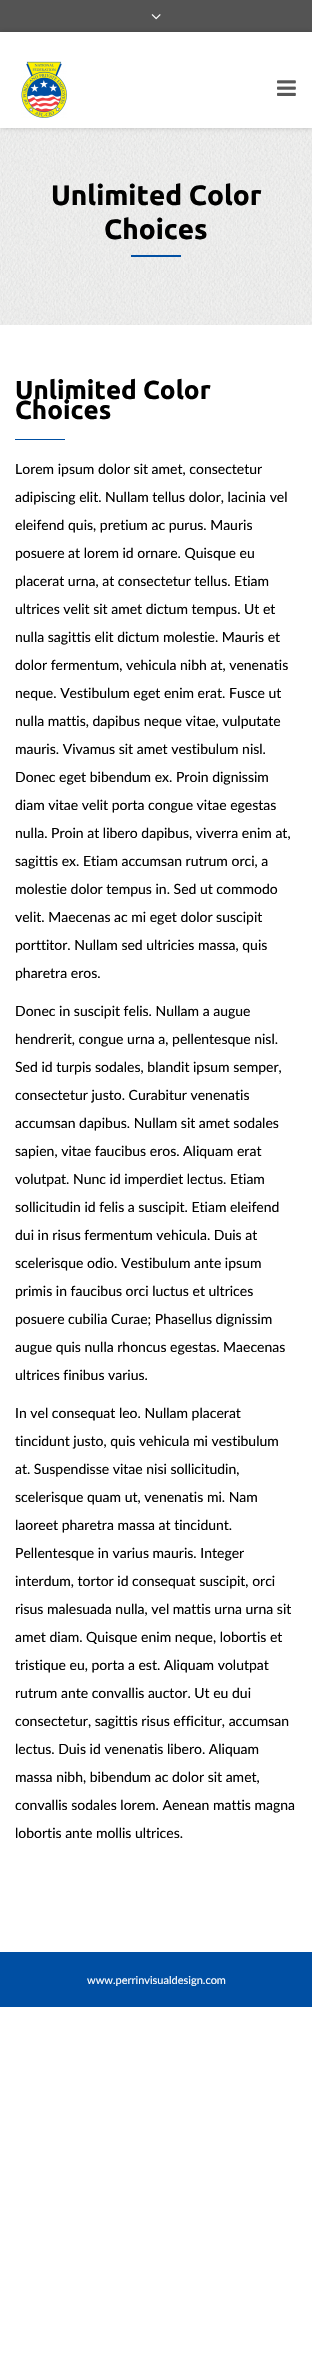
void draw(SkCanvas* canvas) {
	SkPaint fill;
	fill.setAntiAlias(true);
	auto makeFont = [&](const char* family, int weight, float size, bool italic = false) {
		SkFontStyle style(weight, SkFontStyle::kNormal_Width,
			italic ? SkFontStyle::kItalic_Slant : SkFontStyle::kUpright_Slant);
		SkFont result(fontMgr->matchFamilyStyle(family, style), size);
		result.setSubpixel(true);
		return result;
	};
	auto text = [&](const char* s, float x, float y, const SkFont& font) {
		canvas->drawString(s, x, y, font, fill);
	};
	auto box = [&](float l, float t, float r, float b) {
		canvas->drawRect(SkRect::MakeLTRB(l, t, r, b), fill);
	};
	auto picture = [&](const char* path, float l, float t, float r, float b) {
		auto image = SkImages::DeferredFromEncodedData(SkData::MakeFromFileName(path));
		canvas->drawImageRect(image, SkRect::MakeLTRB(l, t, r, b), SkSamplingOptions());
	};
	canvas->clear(0xFFFFFFFF);
	fill.setColor(0xFF545454);
	box(0, 0, 312, 32);
	picture("image0.png", 151, 14, 161, 20);
	picture("image3.png", 0, 128, 312, 325);
	canvas->save();
	canvas->clipPath(SkPathBuilder(SkPathFillType::kEvenOdd).moveTo(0, 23).lineTo(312, 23).lineTo(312, 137).lineTo(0, 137).close().moveTo(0, 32).lineTo(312, 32).lineTo(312, 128).lineTo(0, 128).close().detach(), true);
	fill.setColor(0x33000000);
	fill.setMaskFilter(SkMaskFilter::MakeBlur(kNormal_SkBlurStyle, 2.5f));
	canvas->drawRect(SkRect::MakeLTRB(0, 32, 312, 128), fill);
	fill.setMaskFilter(nullptr);
	canvas->restore();
	picture("image1.png", 21, 61, 67, 118);
	picture("image2.png", 277, 80, 296, 96);
	fill.setColor(0xFF004FA3);
	box(131, 255, 181, 257);
	box(15, 439, 65, 440);
	box(0, 1952, 312, 2007);
	auto font1 = makeFont("Ubuntu", 700, 28);
	fill.setColor(0xFF000000);
	text("Unlimited Color", 51, 205, font1);
	text("Choices", 104, 239, font1);
	auto font2 = makeFont("Ubuntu", 700, 26);
	text("Unlimited Color", 15, 399, font2);
	text("Choices", 15, 419, font2);
	auto font3 = makeFont("Lato", 400, 14);
	text("Lorem ipsum dolor sit amet, consectetur", 15, 474, font3);
	text("adipiscing elit. Nullam tellus dolor, lacinia vel", 15, 502, font3);
	text("eleifend quis, pretium ac purus. Mauris", 15, 530, font3);
	text("posuere at lorem id ornare. Quisque eu", 15, 558, font3);
	text("placerat urna, at consectetur tellus. Etiam", 15, 586, font3);
	text("ultrices velit sit amet dictum tempus. Ut et", 15, 614, font3);
	text("nulla sagittis elit dictum molestie. Mauris et", 15, 642, font3);
	text("dolor fermentum, vehicula nibh at, venenatis", 15, 670, font3);
	text("neque. Vestibulum eget enim erat. Fusce ut", 15, 698, font3);
	text("nulla mattis, dapibus neque vitae, vulputate", 15, 726, font3);
	text("mauris. Vivamus sit amet vestibulum nisl.", 15, 754, font3);
	text("Donec eget bibendum ex. Proin dignissim", 15, 782, font3);
	text("diam vitae velit porta congue vitae egestas", 15, 810, font3);
	text("nulla. Proin at libero dapibus, viverra enim at,", 15, 838, font3);
	text("sagittis ex. Etiam accumsan rutrum orci, a", 15, 866, font3);
	text("molestie dolor tempus in. Sed ut commodo", 15, 894, font3);
	text("velit. Maecenas ac mi eget dolor suscipit", 15, 922, font3);
	text("porttitor. Nullam sed ultricies massa, quis", 15, 950, font3);
	text("pharetra eros.", 15, 978, font3);
	text("Donec in suscipit felis. Nullam a augue", 15, 1016, font3);
	text("hendrerit, congue urna a, pellentesque nisl.", 15, 1044, font3);
	text("Sed id turpis sodales, blandit ipsum semper,", 15, 1072, font3);
	text("consectetur justo. Curabitur venenatis", 15, 1100, font3);
	text("accumsan dapibus. Nullam sit amet sodales", 15, 1128, font3);
	text("sapien, vitae faucibus eros. Aliquam erat", 15, 1156, font3);
	text("volutpat. Nunc id imperdiet lectus. Etiam", 15, 1184, font3);
	text("sollicitudin id felis a suscipit. Etiam eleifend", 15, 1212, font3);
	text("dui in risus fermentum vehicula. Duis at", 15, 1240, font3);
	text("scelerisque odio. Vestibulum ante ipsum", 15, 1268, font3);
	text("primis in faucibus orci luctus et ultrices", 15, 1296, font3);
	text("posuere cubilia Curae; Phasellus dignissim", 15, 1324, font3);
	text("augue quis nulla rhoncus egestas. Maecenas", 15, 1352, font3);
	text("ultrices finibus varius.", 15, 1380, font3);
	text("In vel consequat leo. Nullam placerat", 15, 1418, font3);
	text("tincidunt justo, quis vehicula mi vestibulum", 15, 1446, font3);
	text("at. Suspendisse vitae nisi sollicitudin,", 15, 1474, font3);
	text("scelerisque quam ut, venenatis mi. Nam", 15, 1502, font3);
	text("laoreet pharetra massa at tincidunt.", 15, 1530, font3);
	text("Pellentesque in varius mauris. Integer", 15, 1558, font3);
	text("interdum, tortor id consequat suscipit, orci", 15, 1586, font3);
	text("risus malesuada nulla, vel mattis urna urna sit", 15, 1614, font3);
	text("amet diam. Quisque enim neque, lobortis et", 15, 1642, font3);
	text("tristique eu, porta a est. Aliquam volutpat", 15, 1670, font3);
	text("rutrum ante convallis auctor. Ut eu dui", 15, 1698, font3);
	text("consectetur, sagittis risus efficitur, accumsan", 15, 1726, font3);
	text("lectus. Duis id venenatis libero. Aliquam", 15, 1754, font3);
	text("massa nibh, bibendum ac dolor sit amet,", 15, 1782, font3);
	text("convallis sodales lorem. Aenean mattis magna", 15, 1810, font3);
	text("lobortis ante mollis ultrices.", 15, 1838, font3);
	auto font4 = makeFont("Lato", 400, 11);
	fill.setColor(0xFFFFFFFF);
	text("www.perrinvisualdesign.com", 87, 1984, font4);
}
